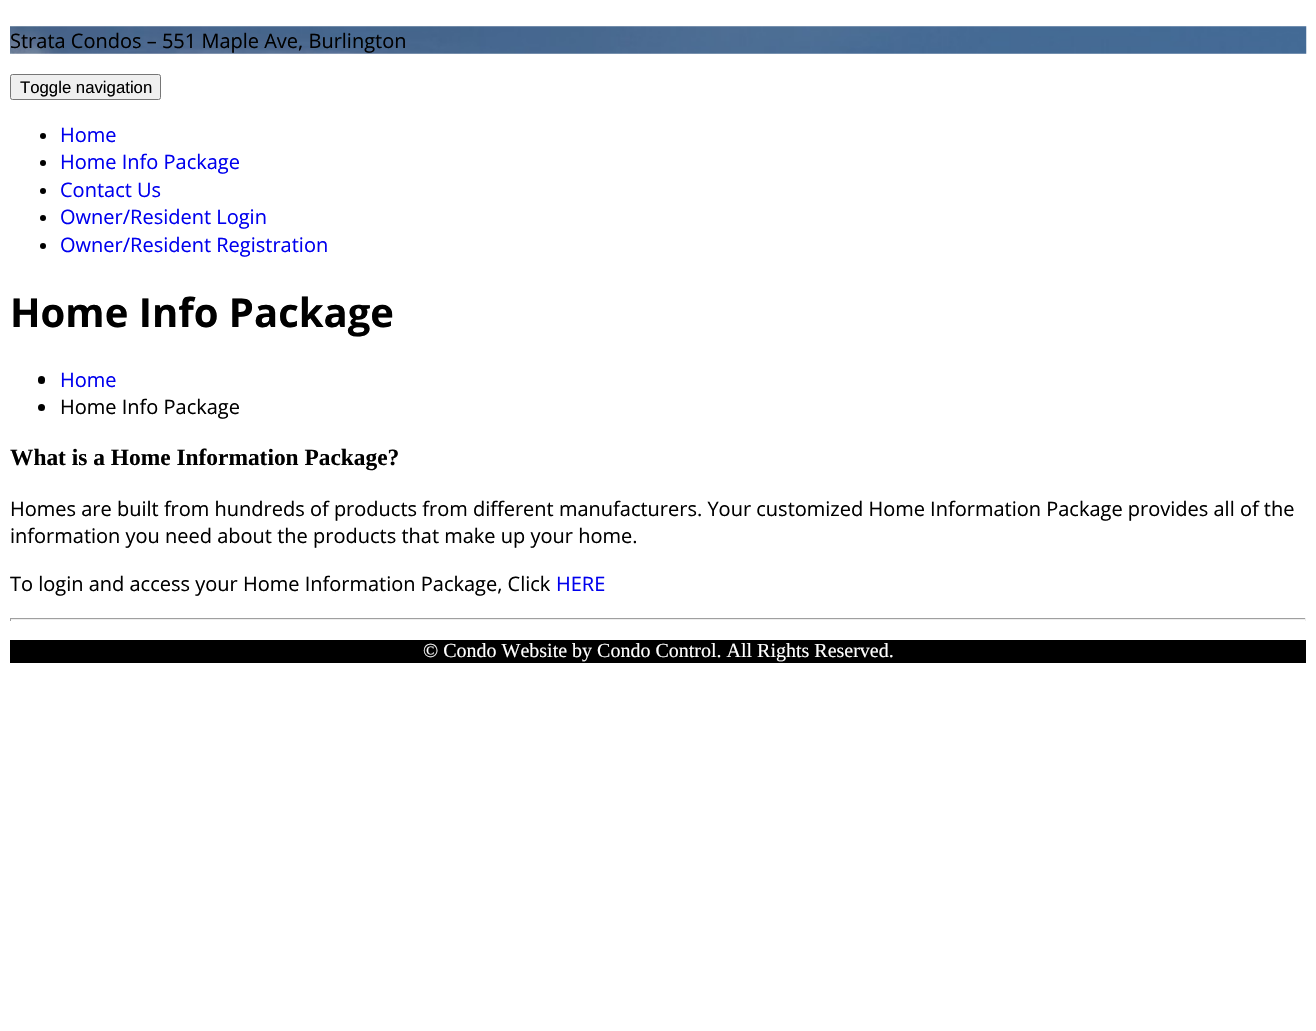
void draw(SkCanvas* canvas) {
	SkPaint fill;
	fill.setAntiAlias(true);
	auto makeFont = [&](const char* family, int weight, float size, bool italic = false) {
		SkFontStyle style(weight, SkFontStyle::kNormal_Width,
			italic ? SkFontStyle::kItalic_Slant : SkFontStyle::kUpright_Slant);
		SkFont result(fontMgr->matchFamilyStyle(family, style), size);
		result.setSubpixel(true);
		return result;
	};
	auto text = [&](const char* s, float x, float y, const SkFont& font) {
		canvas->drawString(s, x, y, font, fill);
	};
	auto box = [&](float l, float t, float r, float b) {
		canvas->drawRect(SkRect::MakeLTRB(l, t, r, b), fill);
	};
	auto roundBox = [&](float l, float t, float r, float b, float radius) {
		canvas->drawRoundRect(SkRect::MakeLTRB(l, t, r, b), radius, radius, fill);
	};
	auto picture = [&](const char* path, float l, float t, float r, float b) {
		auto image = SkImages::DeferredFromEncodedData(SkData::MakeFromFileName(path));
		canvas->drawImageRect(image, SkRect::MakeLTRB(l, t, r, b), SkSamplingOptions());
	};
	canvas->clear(0xFFFFFFFF);
	picture("image0.png", 10, 26, 1307, 54);
	fill.setColor(0xFFEFEFEF);
	canvas->drawRoundRect(SkRect::MakeLTRB(10.5f, 74.5f, 160.5f, 99.5f), 2, 2, fill);
	fill.setStyle(SkPaint::kStroke_Style);
	fill.setStrokeWidth(1);
	fill.setColor(0xFF767676);
	canvas->drawRoundRect(SkRect::MakeLTRB(10.5f, 74.5f, 160.5f, 99.5f), 2, 2, fill);
	fill.setStyle(SkPaint::kFill_Style);
	fill.setColor(0xFF000000);
	canvas->drawCircle(43, 136, 3, fill);
	canvas->drawCircle(43, 163, 3, fill);
	canvas->drawCircle(43, 191, 3, fill);
	canvas->drawCircle(43, 218, 3, fill);
	canvas->drawCircle(43, 246, 3, fill);
	roundBox(38, 376, 45, 384, 3.5f);
	canvas->drawCircle(41.5f, 407.5f, 3.5f, fill);
	fill.setColor(0xFF9F9F9F);
	box(10, 618, 1306, 619);
	fill.setColor(0xFFEEEEEE);
	box(1305, 618, 1306, 621);
	box(10, 619, 1306, 620);
	fill.setColor(0xFF9F9F9F);
	box(10, 618, 11, 621);
	fill.setColor(0xFF000000);
	box(10, 640, 1306, 663);
	auto font1 = makeFont("Open Sans", 400, 20);
	text("Strata Condos – 551 Maple Ave, Burlington", 10, 48, font1);
	auto font2 = makeFont("Liberation Sans", 400, 16.75f);
	text("Toggle navigation", 20, 93, font2);
	fill.setColor(0xFF0000EE);
	text("Home", 60, 142, font1);
	text("Home Info Package", 60, 169, font1);
	text("Contact Us", 60, 197, font1);
	text("Owner/Resident Login", 60, 224, font1);
	text("Owner/Resident Registration", 60, 252, font1);
	auto font3 = makeFont("Open Sans", 700, 40);
	fill.setColor(0xFF000000);
	text("Home Info Package", 10, 327, font3);
	fill.setColor(0xFF0000EE);
	text("Home", 60, 387, font1);
	fill.setColor(0xFF000000);
	text("Home Info Package", 60, 414, font1);
	auto font4 = makeFont("Liberation Serif", 700, 23.4f);
	text("What is a Home Information Package?", 10, 465, font4);
	text("Homes are built from hundreds of products from different manufacturers. Your customized Home Information Package provides all of the", 10, 516, font1);
	text("information you need about the products that make up your home.", 10, 543, font1);
	text("To login and access your Home Information Package, Click", 10, 591, font1);
	fill.setColor(0xFF0000EE);
	text("HERE", 556, 591, font1);
	auto font5 = makeFont("Liberation Serif", 400, 20);
	fill.setColor(0xFFFFFFFF);
	text("© Condo Website by Condo Control. All Rights Reserved.", 423, 657, font5);
}
